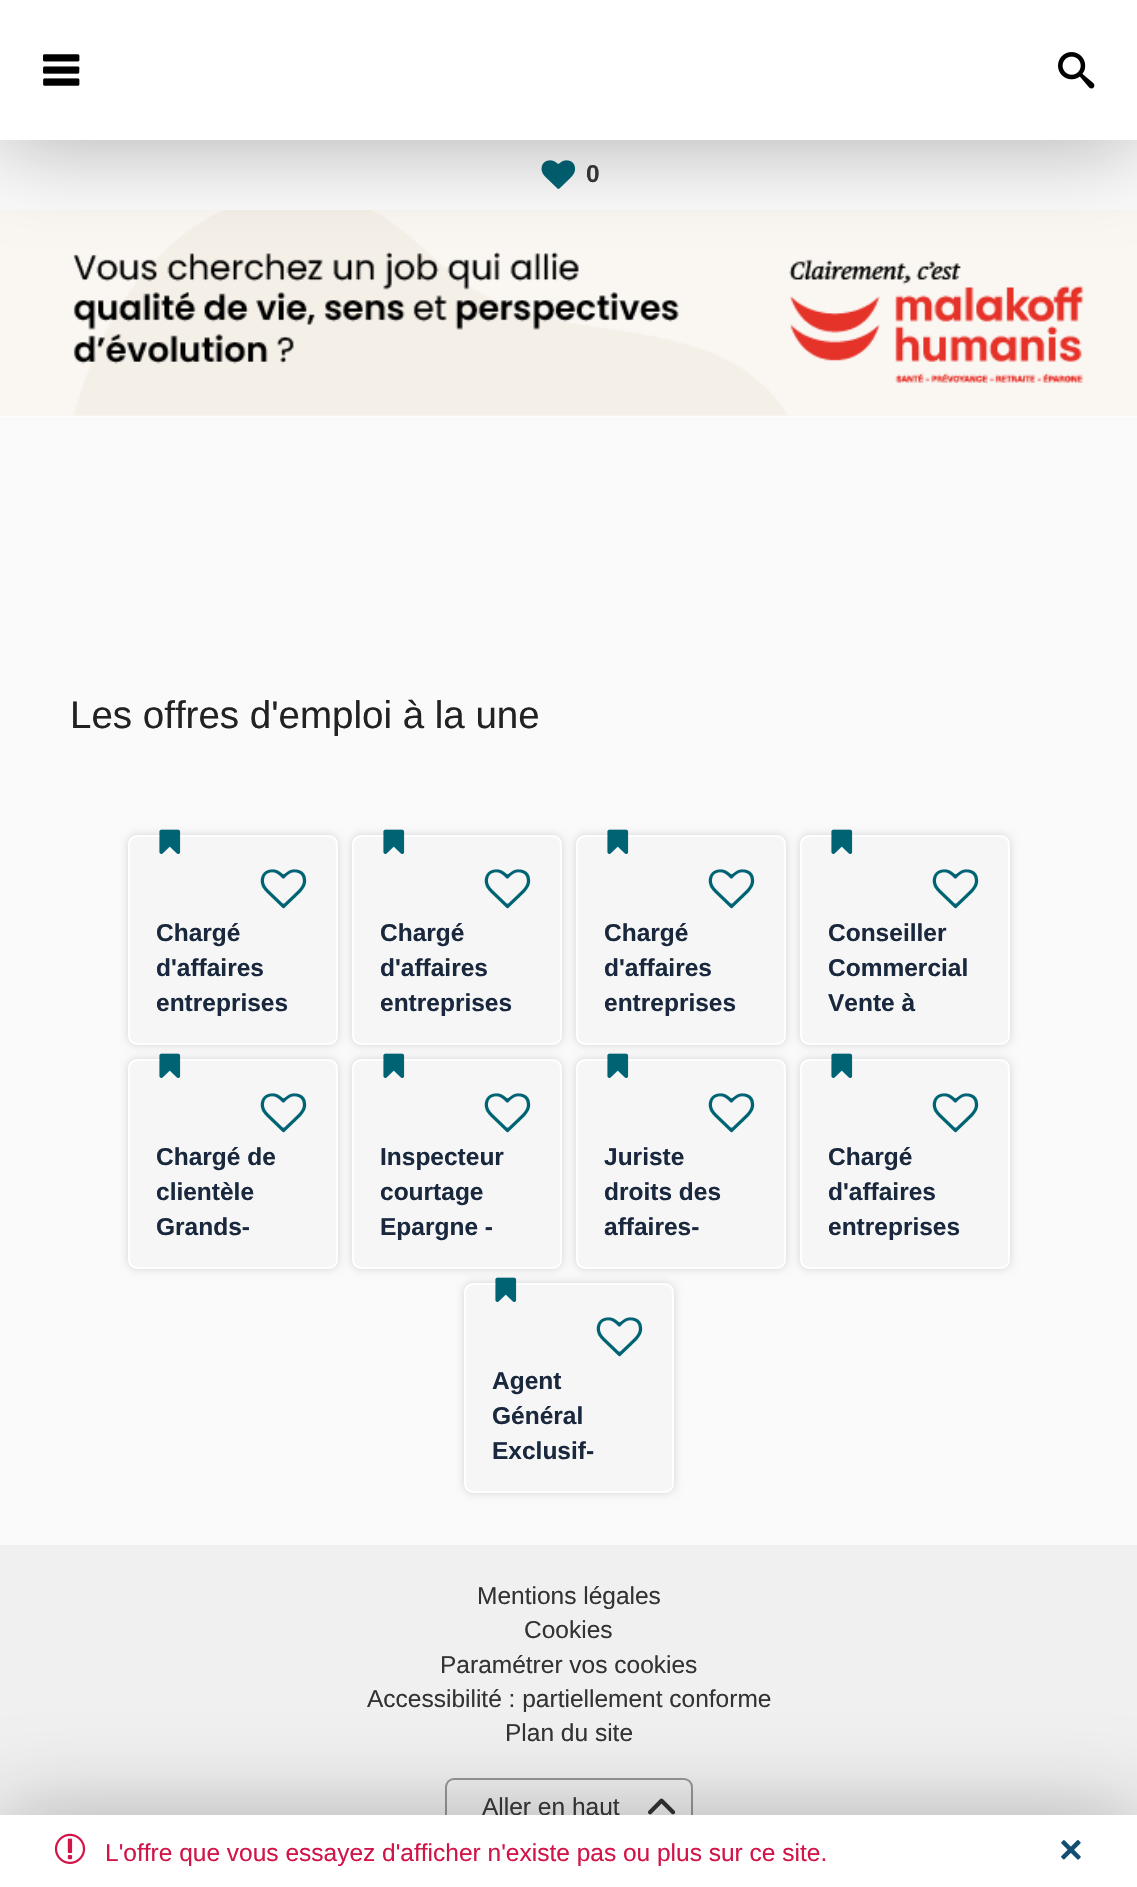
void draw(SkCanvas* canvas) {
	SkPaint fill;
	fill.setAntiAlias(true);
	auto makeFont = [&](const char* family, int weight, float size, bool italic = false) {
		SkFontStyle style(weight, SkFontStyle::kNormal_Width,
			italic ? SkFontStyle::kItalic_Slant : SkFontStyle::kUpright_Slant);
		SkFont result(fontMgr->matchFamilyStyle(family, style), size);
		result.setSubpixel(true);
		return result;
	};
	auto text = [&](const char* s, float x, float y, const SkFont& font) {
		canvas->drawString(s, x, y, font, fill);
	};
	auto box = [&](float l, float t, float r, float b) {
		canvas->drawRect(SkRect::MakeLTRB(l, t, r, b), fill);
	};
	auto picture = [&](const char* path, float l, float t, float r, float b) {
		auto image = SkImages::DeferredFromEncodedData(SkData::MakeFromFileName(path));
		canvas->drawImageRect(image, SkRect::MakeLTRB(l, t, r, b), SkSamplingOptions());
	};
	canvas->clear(0xFFFFFFFF);
	fill.setColor(0xFFFAFAFA);
	box(0, 140, 1137, 210);
	picture("image2.png", 541, 160, 576, 189);
	picture("image3.png", 586, 175, 588, 177);
	picture("image4.png", 0, 210, 1137, 417);
	fill.setColor(0x4D000000);
	fill.setMaskFilter(SkMaskFilter::MakeBlur(kNormal_SkBlurStyle, 44));
	canvas->drawRect(SkRect::MakeLTRB(0, 4, 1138, 144), fill);
	fill.setMaskFilter(nullptr);
	fill.setColor(0xFFFFFFFF);
	box(0, 0, 1137, 140);
	picture("image0.png", 43, 54, 80, 86);
	picture("image1.png", 1058, 52, 1095, 89);
	fill.setColor(0xFFFAFAFA);
	box(0, 417, 1137, 1545);
	fill.setColor(0x26000000);
	fill.setMaskFilter(SkMaskFilter::MakeBlur(kNormal_SkBlurStyle, 4.5f));
	canvas->drawRoundRect(SkRect::MakeLTRB(128, 835, 338, 1045), 9, 9, fill);
	fill.setMaskFilter(nullptr);
	fill.setColor(0xFFF6F6F6);
	canvas->drawRoundRect(SkRect::MakeLTRB(129, 836, 337, 1044), 8, 8, fill);
	fill.setStyle(SkPaint::kStroke_Style);
	fill.setStrokeWidth(2);
	fill.setColor(0xFFFFFFFF);
	canvas->drawRoundRect(SkRect::MakeLTRB(129, 836, 337, 1044), 8, 8, fill);
	picture("image5.png", 159, 829, 181, 854);
	picture("image6.png", 260, 869, 307, 909);
	fill.setStyle(SkPaint::kFill_Style);
	fill.setColor(0x26000000);
	fill.setMaskFilter(SkMaskFilter::MakeBlur(kNormal_SkBlurStyle, 4.5f));
	canvas->drawRoundRect(SkRect::MakeLTRB(352, 835, 562, 1045), 9, 9, fill);
	fill.setMaskFilter(nullptr);
	fill.setColor(0xFFF6F6F6);
	canvas->drawRoundRect(SkRect::MakeLTRB(353, 836, 561, 1044), 8, 8, fill);
	fill.setStyle(SkPaint::kStroke_Style);
	fill.setColor(0xFFFFFFFF);
	canvas->drawRoundRect(SkRect::MakeLTRB(353, 836, 561, 1044), 8, 8, fill);
	picture("image5.png", 383, 829, 405, 854);
	picture("image6.png", 484, 869, 531, 909);
	fill.setStyle(SkPaint::kFill_Style);
	fill.setColor(0x26000000);
	fill.setMaskFilter(SkMaskFilter::MakeBlur(kNormal_SkBlurStyle, 4.5f));
	canvas->drawRoundRect(SkRect::MakeLTRB(576, 835, 786, 1045), 9, 9, fill);
	fill.setMaskFilter(nullptr);
	fill.setColor(0xFFF6F6F6);
	canvas->drawRoundRect(SkRect::MakeLTRB(577, 836, 785, 1044), 8, 8, fill);
	fill.setStyle(SkPaint::kStroke_Style);
	fill.setColor(0xFFFFFFFF);
	canvas->drawRoundRect(SkRect::MakeLTRB(577, 836, 785, 1044), 8, 8, fill);
	picture("image5.png", 607, 829, 629, 854);
	picture("image6.png", 708, 869, 755, 909);
	fill.setStyle(SkPaint::kFill_Style);
	fill.setColor(0x26000000);
	fill.setMaskFilter(SkMaskFilter::MakeBlur(kNormal_SkBlurStyle, 4.5f));
	canvas->drawRoundRect(SkRect::MakeLTRB(800, 835, 1010, 1045), 9, 9, fill);
	fill.setMaskFilter(nullptr);
	fill.setColor(0xFFF6F6F6);
	canvas->drawRoundRect(SkRect::MakeLTRB(801, 836, 1009, 1044), 8, 8, fill);
	fill.setStyle(SkPaint::kStroke_Style);
	fill.setColor(0xFFFFFFFF);
	canvas->drawRoundRect(SkRect::MakeLTRB(801, 836, 1009, 1044), 8, 8, fill);
	picture("image5.png", 831, 829, 853, 854);
	picture("image6.png", 932, 869, 979, 909);
	fill.setStyle(SkPaint::kFill_Style);
	fill.setColor(0x26000000);
	fill.setMaskFilter(SkMaskFilter::MakeBlur(kNormal_SkBlurStyle, 4.5f));
	canvas->drawRoundRect(SkRect::MakeLTRB(128, 1059, 338, 1269), 9, 9, fill);
	fill.setMaskFilter(nullptr);
	fill.setColor(0xFFF6F6F6);
	canvas->drawRoundRect(SkRect::MakeLTRB(129, 1060, 337, 1268), 8, 8, fill);
	fill.setStyle(SkPaint::kStroke_Style);
	fill.setColor(0xFFFFFFFF);
	canvas->drawRoundRect(SkRect::MakeLTRB(129, 1060, 337, 1268), 8, 8, fill);
	picture("image7.png", 159, 1053, 181, 1078);
	picture("image6.png", 260, 1093, 307, 1133);
	fill.setStyle(SkPaint::kFill_Style);
	fill.setColor(0x26000000);
	fill.setMaskFilter(SkMaskFilter::MakeBlur(kNormal_SkBlurStyle, 4.5f));
	canvas->drawRoundRect(SkRect::MakeLTRB(352, 1059, 562, 1269), 9, 9, fill);
	fill.setMaskFilter(nullptr);
	fill.setColor(0xFFF6F6F6);
	canvas->drawRoundRect(SkRect::MakeLTRB(353, 1060, 561, 1268), 8, 8, fill);
	fill.setStyle(SkPaint::kStroke_Style);
	fill.setColor(0xFFFFFFFF);
	canvas->drawRoundRect(SkRect::MakeLTRB(353, 1060, 561, 1268), 8, 8, fill);
	picture("image7.png", 383, 1053, 405, 1078);
	picture("image6.png", 484, 1093, 531, 1133);
	fill.setStyle(SkPaint::kFill_Style);
	fill.setColor(0x26000000);
	fill.setMaskFilter(SkMaskFilter::MakeBlur(kNormal_SkBlurStyle, 4.5f));
	canvas->drawRoundRect(SkRect::MakeLTRB(576, 1059, 786, 1269), 9, 9, fill);
	fill.setMaskFilter(nullptr);
	fill.setColor(0xFFF6F6F6);
	canvas->drawRoundRect(SkRect::MakeLTRB(577, 1060, 785, 1268), 8, 8, fill);
	fill.setStyle(SkPaint::kStroke_Style);
	fill.setColor(0xFFFFFFFF);
	canvas->drawRoundRect(SkRect::MakeLTRB(577, 1060, 785, 1268), 8, 8, fill);
	picture("image7.png", 607, 1053, 629, 1078);
	picture("image6.png", 708, 1093, 755, 1133);
	fill.setStyle(SkPaint::kFill_Style);
	fill.setColor(0x26000000);
	fill.setMaskFilter(SkMaskFilter::MakeBlur(kNormal_SkBlurStyle, 4.5f));
	canvas->drawRoundRect(SkRect::MakeLTRB(800, 1059, 1010, 1269), 9, 9, fill);
	fill.setMaskFilter(nullptr);
	fill.setColor(0xFFF6F6F6);
	canvas->drawRoundRect(SkRect::MakeLTRB(801, 1060, 1009, 1268), 8, 8, fill);
	fill.setStyle(SkPaint::kStroke_Style);
	fill.setColor(0xFFFFFFFF);
	canvas->drawRoundRect(SkRect::MakeLTRB(801, 1060, 1009, 1268), 8, 8, fill);
	picture("image7.png", 831, 1053, 853, 1078);
	picture("image6.png", 932, 1093, 979, 1133);
	fill.setStyle(SkPaint::kFill_Style);
	fill.setColor(0x26000000);
	fill.setMaskFilter(SkMaskFilter::MakeBlur(kNormal_SkBlurStyle, 4.5f));
	canvas->drawRoundRect(SkRect::MakeLTRB(464, 1283, 674, 1493), 9, 9, fill);
	fill.setMaskFilter(nullptr);
	fill.setColor(0xFFF6F6F6);
	canvas->drawRoundRect(SkRect::MakeLTRB(465, 1284, 673, 1492), 8, 8, fill);
	fill.setStyle(SkPaint::kStroke_Style);
	fill.setColor(0xFFFFFFFF);
	canvas->drawRoundRect(SkRect::MakeLTRB(465, 1284, 673, 1492), 8, 8, fill);
	picture("image7.png", 495, 1277, 517, 1302);
	picture("image6.png", 596, 1317, 643, 1357);
	fill.setStyle(SkPaint::kFill_Style);
	fill.setColor(0xFFF0F0F0);
	box(0, 1545, 1137, 1815);
	fill.setStyle(SkPaint::kStroke_Style);
	fill.setColor(0xFF979797);
	canvas->drawRoundRect(SkRect::MakeLTRB(446, 1779, 692, 1838), 8, 8, fill);
	picture("image10.png", 647, 1798, 676, 1815);
	fill.setStyle(SkPaint::kFill_Style);
	fill.setColor(0x4D000000);
	fill.setMaskFilter(SkMaskFilter::MakeBlur(kNormal_SkBlurStyle, 44));
	canvas->drawRect(SkRect::MakeLTRB(0, 1818, 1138, 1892), fill);
	fill.setMaskFilter(nullptr);
	auto font1 = makeFont("Liberation Sans", 700, 24.5f);
	fill.setColor(0xFF333333);
	text("0", 586, 182, font1);
	auto font2 = makeFont("Liberation Sans", 400, 38.5f);
	fill.setColor(0xFF222222);
	text("Les offres d'emploi à la une", 70, 728, font2);
	fill.setColor(0xFF1A283E);
	text("Chargé", 156, 941, font1);
	text("d'affaires", 156, 976, font1);
	text("entreprises", 156, 1011, font1);
	text("Chargé", 380, 941, font1);
	text("d'affaires", 380, 976, font1);
	text("entreprises", 380, 1011, font1);
	text("Chargé", 604, 941, font1);
	text("d'affaires", 604, 976, font1);
	text("entreprises", 604, 1011, font1);
	text("Conseiller", 828, 941, font1);
	text("Commercial", 828, 976, font1);
	text("Vente à", 828, 1011, font1);
	text("Chargé de", 156, 1165, font1);
	text("clientèle", 156, 1200, font1);
	text("Grands-", 156, 1235, font1);
	text("Inspecteur", 380, 1165, font1);
	text("courtage", 380, 1200, font1);
	text("Epargne -", 380, 1235, font1);
	text("Juriste", 604, 1165, font1);
	text("droits des", 604, 1200, font1);
	text("affaires-", 604, 1235, font1);
	text("Chargé", 828, 1165, font1);
	text("d'affaires", 828, 1200, font1);
	text("entreprises", 828, 1235, font1);
	text("Agent", 492, 1389, font1);
	text("Général", 492, 1424, font1);
	text("Exclusif-", 492, 1459, font1);
	auto font3 = makeFont("Liberation Sans", 400, 24.5f);
	fill.setColor(0xFF333333);
	text("Mentions légales", 477, 1604, font3);
	text("Cookies", 524, 1638, font3);
	text("Paramétrer vos cookies", 440, 1673, font3);
	text("Accessibilité : partiellement conforme", 367, 1707, font3);
	text("Plan du site", 505, 1741, font3);
	text("Aller en haut", 482, 1815, font3);
	fill.setColor(0xFFFFFFFF);
	box(0, 1815, 1137, 1887);
	picture("image9.png", 1061, 1840, 1081, 1860);
	picture("image8.png", 54, 1833, 86, 1864);
	fill.setColor(0xFFD11548);
	text("L'offre que vous essayez d'afficher n'existe pas ou plus sur ce site.", 105, 1861, font3);
}
